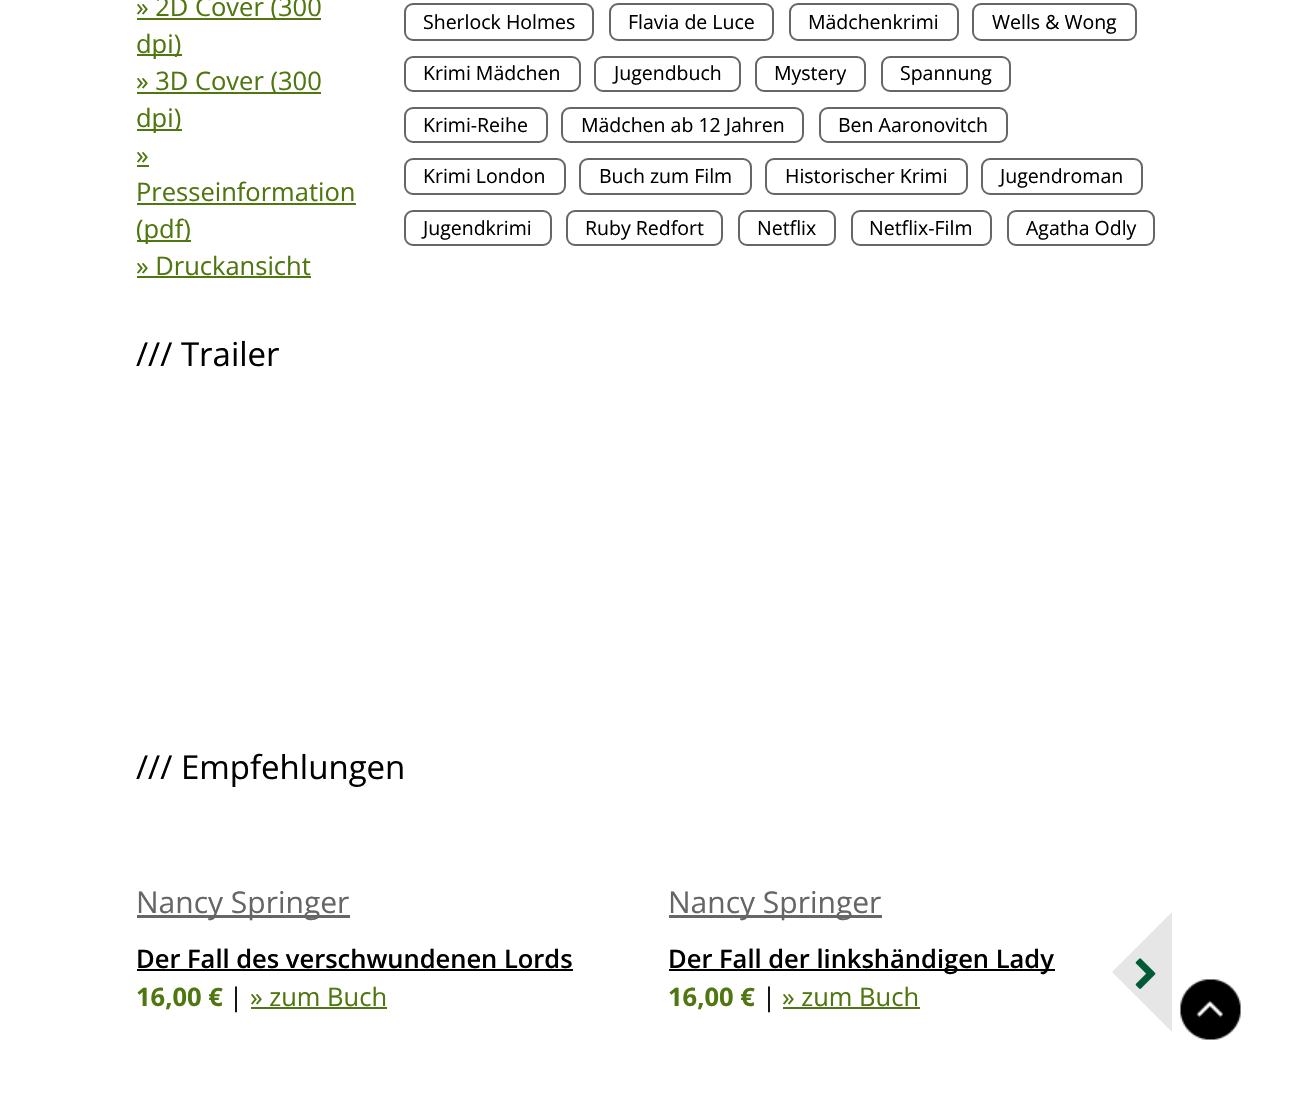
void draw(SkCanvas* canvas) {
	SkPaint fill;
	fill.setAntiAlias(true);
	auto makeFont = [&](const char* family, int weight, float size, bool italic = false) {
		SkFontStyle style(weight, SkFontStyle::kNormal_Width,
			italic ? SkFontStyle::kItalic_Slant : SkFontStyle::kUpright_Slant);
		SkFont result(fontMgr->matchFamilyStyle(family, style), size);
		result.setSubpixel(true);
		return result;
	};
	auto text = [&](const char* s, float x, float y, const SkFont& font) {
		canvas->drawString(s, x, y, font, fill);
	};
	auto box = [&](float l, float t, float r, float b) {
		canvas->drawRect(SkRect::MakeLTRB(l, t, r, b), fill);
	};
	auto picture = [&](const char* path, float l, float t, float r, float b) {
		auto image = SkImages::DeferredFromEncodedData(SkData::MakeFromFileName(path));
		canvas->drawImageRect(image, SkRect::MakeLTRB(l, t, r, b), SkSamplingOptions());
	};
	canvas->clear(0xFFFFFFFF);
	fill.setColor(0xFF4F760F);
	box(137, 18, 321, 20);
	box(137, 54, 182, 56);
	box(137, 92, 321, 94);
	box(137, 129, 182, 131);
	box(137, 165, 149, 167);
	box(137, 203, 356, 205);
	box(137, 240, 191, 242);
	box(137, 276, 311, 278);
	fill.setStyle(SkPaint::kStroke_Style);
	fill.setStrokeWidth(2);
	fill.setColor(0xFF666666);
	canvas->drawRoundRect(SkRect::MakeLTRB(405, 4, 593, 40), 8, 8, fill);
	canvas->drawRoundRect(SkRect::MakeLTRB(610, 4, 773, 40), 8, 8, fill);
	canvas->drawRoundRect(SkRect::MakeLTRB(790, 4, 958, 40), 8, 8, fill);
	canvas->drawRoundRect(SkRect::MakeLTRB(973, 4, 1136, 40), 8, 8, fill);
	canvas->drawRoundRect(SkRect::MakeLTRB(405, 57, 580, 91), 8, 8, fill);
	canvas->drawRoundRect(SkRect::MakeLTRB(595, 57, 740, 91), 8, 8, fill);
	canvas->drawRoundRect(SkRect::MakeLTRB(756, 57, 865, 91), 8, 8, fill);
	canvas->drawRoundRect(SkRect::MakeLTRB(882, 57, 1010, 91), 8, 8, fill);
	canvas->drawRoundRect(SkRect::MakeLTRB(405, 108, 547, 142), 8, 8, fill);
	canvas->drawRoundRect(SkRect::MakeLTRB(562, 108, 803, 142), 8, 8, fill);
	canvas->drawRoundRect(SkRect::MakeLTRB(820, 108, 1007, 142), 8, 8, fill);
	canvas->drawRoundRect(SkRect::MakeLTRB(405, 159, 565, 194), 8, 8, fill);
	canvas->drawRoundRect(SkRect::MakeLTRB(580, 159, 751, 194), 8, 8, fill);
	canvas->drawRoundRect(SkRect::MakeLTRB(766, 159, 967, 194), 8, 8, fill);
	canvas->drawRoundRect(SkRect::MakeLTRB(982, 159, 1142, 194), 8, 8, fill);
	canvas->drawRoundRect(SkRect::MakeLTRB(405, 211, 551, 245), 8, 8, fill);
	canvas->drawRoundRect(SkRect::MakeLTRB(567, 211, 722, 245), 8, 8, fill);
	canvas->drawRoundRect(SkRect::MakeLTRB(739, 211, 835, 245), 8, 8, fill);
	canvas->drawRoundRect(SkRect::MakeLTRB(852, 211, 991, 245), 8, 8, fill);
	canvas->drawRoundRect(SkRect::MakeLTRB(1008, 211, 1154, 245), 8, 8, fill);
	fill.setStyle(SkPaint::kFill_Style);
	box(137, 915, 350, 918);
	fill.setColor(0xFF000000);
	box(137, 969, 573, 971);
	fill.setColor(0xFF4F760F);
	box(251, 1007, 387, 1009);
	fill.setColor(0xFF666666);
	box(669, 915, 882, 918);
	fill.setColor(0xFF000000);
	box(669, 969, 1055, 971);
	fill.setColor(0xFF4F760F);
	box(783, 1007, 920, 1009);
	fill.setColor(0xFFE6E6E6);
	canvas->drawPath(SkPathBuilder().moveTo(1172, 912).lineTo(1172, 1032).lineTo(1112, 972).close().detach(), fill);
	picture("image0.png", 1135, 958, 1156, 989);
	picture("image1.png", 1180, 979, 1241, 1040);
	auto font1 = makeFont("Open Sans", 400, 25.5f);
	fill.setColor(0xFF4F760F);
	text("» 2D Cover (300", 136, 16, font1);
	text("dpi)", 136, 53, font1);
	text("» 3D Cover (300", 136, 90, font1);
	text("dpi)", 136, 127, font1);
	text("»", 136, 164, font1);
	text("Presseinformation", 136, 201, font1);
	text("(pdf)", 136, 238, font1);
	text("» Druckansicht", 136, 275, font1);
	auto font2 = makeFont("Open Sans", 400, 19.5f);
	fill.setColor(0xFF000000);
	text("Sherlock Holmes", 423, 29, font2);
	text("Flavia de Luce", 628, 29, font2);
	text("Mädchenkrimi", 808, 29, font2);
	text("Wells & Wong", 992, 29, font2);
	text("Krimi Mädchen", 423, 80, font2);
	text("Jugendbuch", 614, 80, font2);
	text("Mystery", 774, 80, font2);
	text("Spannung", 900, 80, font2);
	text("Krimi-Reihe", 423, 132, font2);
	text("Mädchen ab 12 Jahren", 581, 132, font2);
	text("Ben Aaronovitch", 838, 132, font2);
	text("Krimi London", 423, 183, font2);
	text("Buch zum Film", 599, 183, font2);
	text("Historischer Krimi", 785, 183, font2);
	text("Jugendroman", 1000, 183, font2);
	text("Jugendkrimi", 423, 235, font2);
	text("Ruby Redfort", 585, 235, font2);
	text("Netflix", 757, 235, font2);
	text("Netflix-Film", 869, 235, font2);
	text("Agatha Odly", 1026, 235, font2);
	auto font3 = makeFont("Open Sans", 400, 33);
	text("/// Trailer", 136, 366, font3);
	text("/// Empfehlungen", 136, 779, font3);
	auto font4 = makeFont("Open Sans", 400, 30);
	fill.setColor(0xFF666666);
	text("Nancy Springer", 136, 913, font4);
	auto font5 = makeFont("Open Sans", 600, 25.5f);
	fill.setColor(0xFF000000);
	text("Der Fall des verschwundenen Lords", 136, 968, font5);
	auto font6 = makeFont("Open Sans", 700, 25.5f);
	fill.setColor(0xFF4F760F);
	text("16,00 €", 136, 1006, font6);
	fill.setColor(0xFF000000);
	text("|", 229, 1006, font1);
	fill.setColor(0xFF4F760F);
	text("» zum Buch", 250, 1006, font1);
	fill.setColor(0xFF666666);
	text("Nancy Springer", 668, 913, font4);
	fill.setColor(0xFF000000);
	text("Der Fall der linkshändigen Lady", 668, 968, font5);
	fill.setColor(0xFF4F760F);
	text("16,00 €", 668, 1006, font6);
	fill.setColor(0xFF000000);
	text("|", 762, 1006, font1);
	fill.setColor(0xFF4F760F);
	text("» zum Buch", 782, 1006, font1);
}
